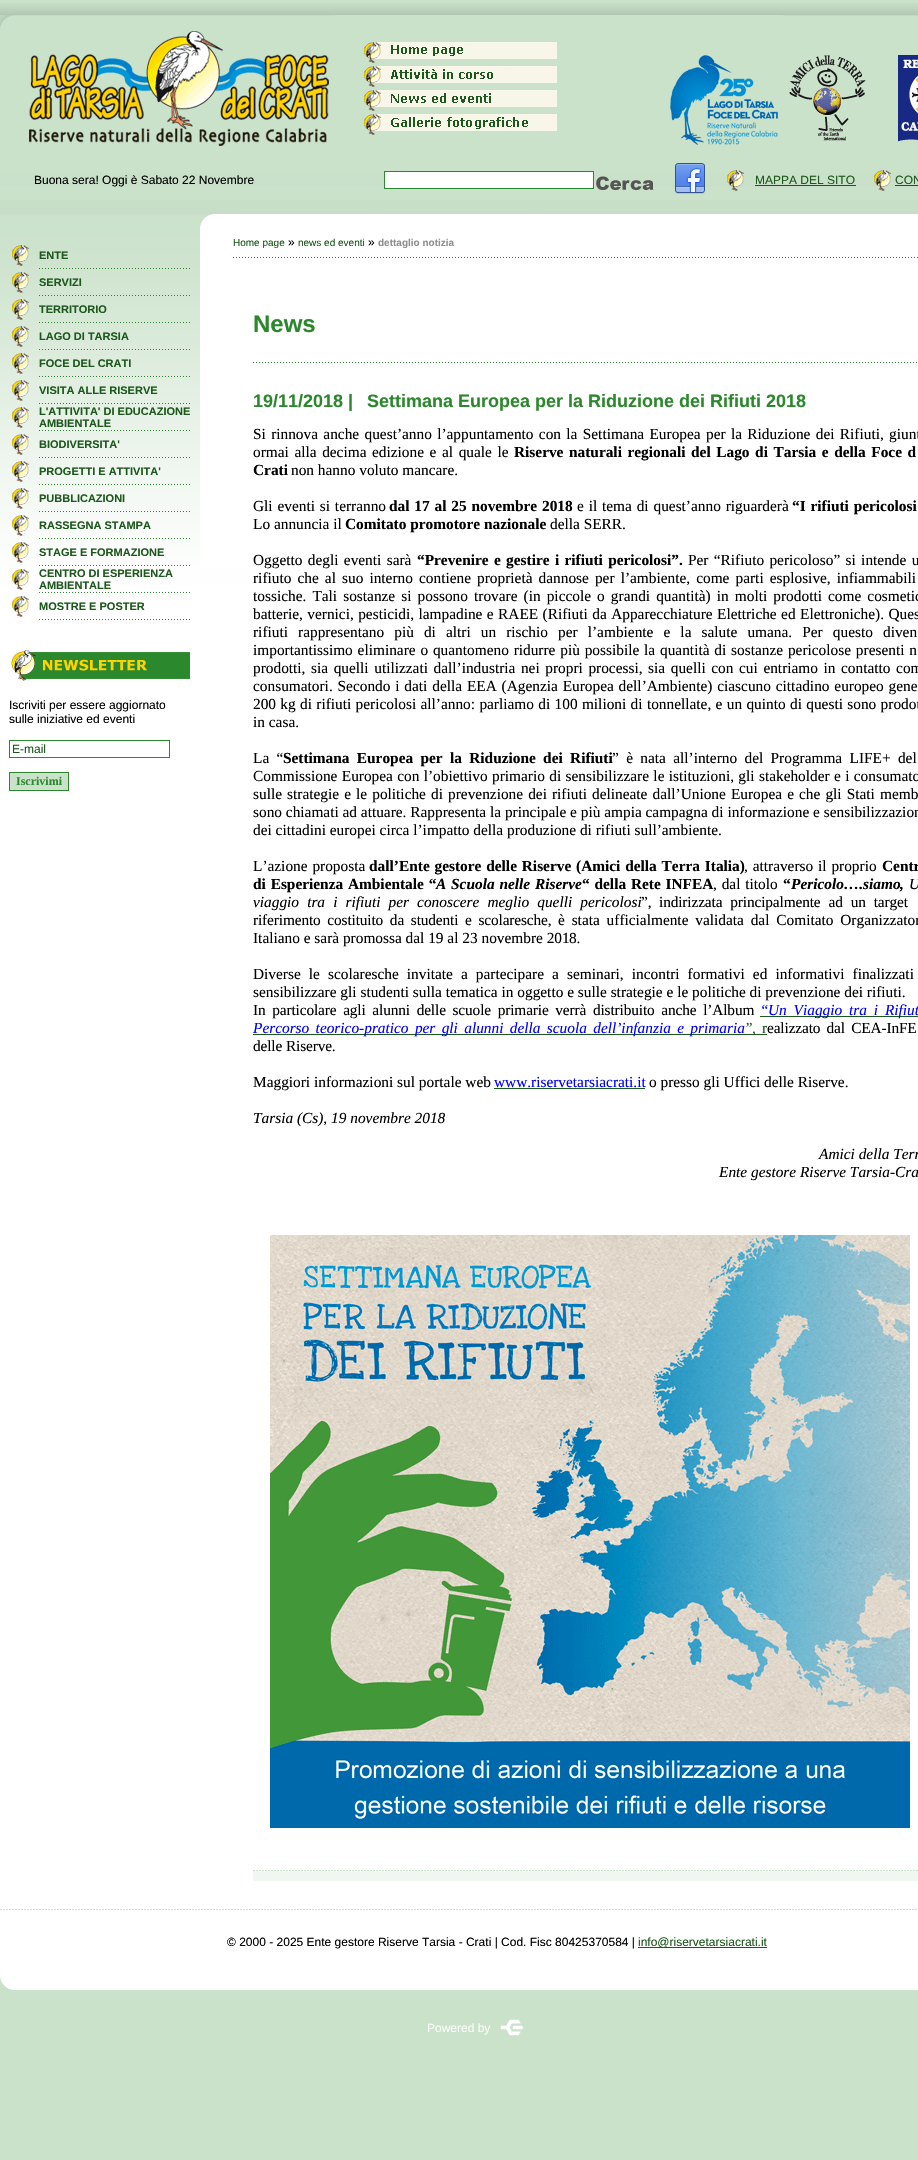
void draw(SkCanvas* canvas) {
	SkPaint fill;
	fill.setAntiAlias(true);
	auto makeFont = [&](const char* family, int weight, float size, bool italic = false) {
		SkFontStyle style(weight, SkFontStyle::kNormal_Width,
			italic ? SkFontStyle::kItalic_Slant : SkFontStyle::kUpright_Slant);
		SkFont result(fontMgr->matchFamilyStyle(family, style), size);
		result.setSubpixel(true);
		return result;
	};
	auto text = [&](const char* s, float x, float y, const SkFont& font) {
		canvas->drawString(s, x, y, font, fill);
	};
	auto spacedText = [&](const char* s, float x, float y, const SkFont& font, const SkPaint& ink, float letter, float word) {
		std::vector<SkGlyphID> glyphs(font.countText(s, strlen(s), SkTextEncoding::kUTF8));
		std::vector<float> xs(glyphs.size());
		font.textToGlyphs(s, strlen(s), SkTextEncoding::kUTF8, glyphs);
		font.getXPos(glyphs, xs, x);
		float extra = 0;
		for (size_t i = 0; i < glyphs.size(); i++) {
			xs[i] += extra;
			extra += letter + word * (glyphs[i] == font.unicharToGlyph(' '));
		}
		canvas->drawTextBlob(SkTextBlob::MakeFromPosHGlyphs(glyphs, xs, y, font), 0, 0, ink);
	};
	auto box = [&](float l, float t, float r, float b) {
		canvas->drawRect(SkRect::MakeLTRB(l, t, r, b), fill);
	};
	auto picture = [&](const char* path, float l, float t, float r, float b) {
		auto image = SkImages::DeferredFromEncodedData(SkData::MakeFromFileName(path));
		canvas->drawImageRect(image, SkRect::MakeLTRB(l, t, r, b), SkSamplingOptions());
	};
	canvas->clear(0xFFCAE1CA);
	picture("image0.png", 0, 3, 918, 214);
	picture("image1.png", 0, 15, 329, 146);
	fill.setColor(0xFFCAE1CA);
	box(335, 15, 783, 16);
	picture("image2.png", 364, 42, 557, 63);
	picture("image3.png", 364, 66, 557, 87);
	picture("image4.png", 364, 90, 557, 111);
	picture("image5.png", 364, 114, 557, 135);
	picture("image6.png", 783, 15, 882, 141);
	picture("image7.png", 882, 15, 918, 142);
	picture("image8.png", 670, 55, 778, 145);
	box(0, 187, 918, 200);
	fill.setColor(0xFFFFFFFF);
	canvas->drawRect(SkRect::MakeLTRB(384.5f, 171.5f, 593.5f, 188.5f), fill);
	fill.setStyle(SkPaint::kStroke_Style);
	fill.setStrokeWidth(1);
	fill.setColor(0xFF2D882D);
	canvas->drawRect(SkRect::MakeLTRB(384.5f, 171.5f, 593.5f, 188.5f), fill);
	picture("image9.png", 596, 176, 654, 190);
	picture("image10.png", 675, 163, 705, 194);
	picture("image11.png", 727, 170, 744, 191);
	fill.setStyle(SkPaint::kFill_Style);
	fill.setColor(0xFF1D581D);
	box(755, 185, 856, 186);
	picture("image11.png", 874, 170, 891, 191);
	box(895, 185, 918, 186);
	picture("image12.png", 0, 214, 918, 1909);
	picture("image13.png", 12, 245, 29, 266);
	picture("image14.png", 39, 268, 190, 269);
	picture("image15.png", 12, 272, 29, 293);
	picture("image16.png", 39, 295, 190, 296);
	picture("image17.png", 12, 299, 29, 320);
	picture("image18.png", 39, 322, 190, 323);
	picture("image19.png", 12, 326, 29, 347);
	picture("image20.png", 39, 349, 190, 350);
	picture("image21.png", 12, 353, 29, 374);
	picture("image22.png", 39, 376, 190, 377);
	picture("image23.png", 12, 380, 29, 401);
	picture("image24.png", 39, 403, 190, 404);
	picture("image25.png", 12, 407, 29, 428);
	picture("image26.png", 39, 430, 190, 431);
	picture("image27.png", 12, 434, 29, 455);
	picture("image28.png", 39, 457, 190, 458);
	picture("image29.png", 12, 461, 29, 482);
	picture("image30.png", 39, 484, 190, 485);
	picture("image31.png", 12, 488, 29, 509);
	picture("image32.png", 39, 511, 190, 512);
	picture("image33.png", 12, 515, 29, 536);
	picture("image34.png", 39, 538, 190, 539);
	picture("image35.png", 12, 542, 29, 563);
	picture("image36.png", 39, 565, 190, 566);
	picture("image37.png", 12, 569, 29, 590);
	picture("image38.png", 39, 592, 190, 593);
	picture("image39.png", 12, 596, 29, 617);
	picture("image38.png", 39, 619, 190, 620);
	picture("image40.png", 11, 650, 190, 681);
	fill.setStyle(SkPaint::kStroke_Style);
	fill.setColor(0xFF2D882D);
	canvas->drawRect(SkRect::MakeLTRB(9.5f, 740.5f, 169.5f, 757.5f), fill);
	fill.setStyle(SkPaint::kFill_Style);
	fill.setColor(0xFFCAE1CA);
	canvas->drawRect(SkRect::MakeLTRB(9.5f, 772.5f, 68.5f, 790.5f), fill);
	fill.setStyle(SkPaint::kStroke_Style);
	fill.setColor(0xFF2D882D);
	canvas->drawRect(SkRect::MakeLTRB(9.5f, 772.5f, 68.5f, 790.5f), fill);
	picture("image41.png", 200, 214, 918, 227);
	fill.setStyle(SkPaint::kFill_Style);
	fill.setColor(0xFFFFFFFF);
	box(200, 227, 918, 567);
	picture("image42.png", 233, 257, 918, 258);
	picture("image43.png", 253, 362, 917, 363);
	fill.setColor(0xFF1D581D);
	box(760, 1016, 918, 1017);
	box(253, 1034, 767, 1035);
	box(494, 1088, 645, 1089);
	picture("image44.png", 270, 1235, 910, 1828);
	picture("image45.png", 253, 1870, 918, 1871);
	fill.setColor(0xFFF0F7F0);
	box(253, 1871, 918, 1881);
	fill.setColor(0xFFFFFFFF);
	box(0, 1909, 918, 1974);
	picture("image46.png", 0, 1909, 917, 1910);
	fill.setColor(0xFF1D581D);
	box(638, 1947, 767, 1948);
	picture("image47.png", 0, 1974, 918, 1990);
	picture("image48.png", 500, 2019, 523, 2036);
	auto font1 = makeFont("Liberation Sans", 400, 12);
	fill.setColor(0xFF000000);
	text("Buona sera! Oggi è Sabato 22 Novembre", 34, 184, font1);
	fill.setColor(0xFF1D581D);
	text("MAPPA DEL SITO", 755, 184, font1);
	text("CON", 895, 184, font1);
	auto font2 = makeFont("Liberation Sans", 700, 11);
	text("ENTE", 39, 259, font2);
	text("SERVIZI", 39, 286, font2);
	text("TERRITORIO", 39, 313, font2);
	text("LAGO DI TARSIA", 39, 340, font2);
	text("FOCE DEL CRATI", 39, 367, font2);
	text("VISITA ALLE RISERVE", 39, 394, font2);
	text("L'ATTIVITA' DI EDUCAZIONE", 39, 415, font2);
	text("AMBIENTALE", 39, 427, font2);
	text("BIODIVERSITA'", 39, 448, font2);
	text("PROGETTI E ATTIVITA'", 39, 475, font2);
	text("PUBBLICAZIONI", 39, 502, font2);
	text("RASSEGNA STAMPA", 39, 529, font2);
	text("STAGE E FORMAZIONE", 39, 556, font2);
	text("CENTRO DI ESPERIENZA", 39, 577, font2);
	text("AMBIENTALE", 39, 589, font2);
	text("MOSTRE E POSTER", 39, 610, font2);
	fill.setColor(0xFF000000);
	text("Iscriviti per essere aggiornato", 9, 709, font1);
	text("sulle iniziative ed eventi", 9, 723, font1);
	fill.setColor(0xFF1D581D);
	text("E-mail", 12, 753, font1);
	auto font3 = makeFont("Liberation Serif", 700, 12);
	fill.setColor(0xFF2C882C);
	text("Iscrivimi", 16, 785, font3);
	auto font4 = makeFont("Liberation Sans", 400, 10);
	fill.setColor(0xFF1D581D);
	text("Home page", 233, 246, font4);
	fill.setColor(0xFF000000);
	text("»", 288, 246, font1);
	fill.setColor(0xFF1D581D);
	text("news ed eventi", 298, 246, font4);
	fill.setColor(0xFF000000);
	text("»", 368, 246, font1);
	auto font5 = makeFont("Liberation Sans", 700, 10);
	fill.setColor(0xFF8F8F8F);
	text("dettaglio notizia", 378, 246, font5);
	auto font6 = makeFont("Liberation Sans", 700, 24);
	fill.setColor(0xFF2C882C);
	text("News", 253, 332, font6);
	auto font7 = makeFont("Liberation Sans", 700, 18);
	text("19/11/2018 |", 253, 407, font7);
	text("Settimana Europea per la Riduzione dei Rifiuti 2018", 367, 407, font7);
	auto font8 = makeFont("Liberation Serif", 400, 15.35f);
	fill.setColor(0xFF000000);
	spacedText("Si rinnova anche quest’anno l’appuntamento con la Settimana Europea per la Riduzione dei Rifiuti, giunt", 253, 439, font8, fill, 0, 1.5f);
	spacedText("ormai alla decima edizione e al quale le", 253, 457, font8, fill, 0, 1.75f);
	auto font9 = makeFont("Liberation Serif", 700, 15.35f);
	spacedText("Riserve naturali regionali del Lago di Tarsia e della Foce d", 514, 457, font9, fill, 0, 1.75f);
	text("Crati", 253, 475, font9);
	text("non hanno voluto mancare.", 291, 475, font8);
	spacedText("Gli eventi si terranno", 253, 511, font8, fill, 0, 1);
	spacedText("dal 17 al 25 novembre 2018", 389, 511, font9, fill, 0, 1);
	spacedText("e il tema di quest’anno riguarderà", 577, 511, font8, fill, 0, 1);
	spacedText("“I rifiuti pericolosi", 792, 511, font9, fill, 0, 1);
	text("Lo annuncia il", 253, 529, font8);
	text("Comitato promotore nazionale", 345, 529, font9);
	text("della SERR.", 550, 529, font8);
	spacedText("Oggetto degli eventi sarà", 253, 565, font8, fill, 0, 1.5f);
	spacedText("“Prevenire e gestire i rifiuti pericolosi”.", 417, 565, font9, fill, 0, 1.5f);
	spacedText("Per “Rifiuto pericoloso” si intende u", 688, 565, font8, fill, 0, 1.5f);
	spacedText("rifiuto che al suo interno contiene proprietà dannose per l’ambiente, come parti esplosive, infiammabili", 253, 583, font8, fill, 0, 2.25f);
	spacedText("tossiche. Tali sostanze si possono trovare (in piccole o grandi quantità) in molti prodotti come cosmetic", 253, 601, font8, fill, 0, 2.25f);
	spacedText("batterie, vernici, pesticidi, lampadine e RAEE (Rifiuti da Apparecchiature Elettriche ed Elettroniche). Ques", 253, 619, font8, fill, 0, 0.6f);
	spacedText("rifiuti rappresentano più di altri un rischio per l’ambiente e la salute umana. Per questo diven", 253, 637, font8, fill, 0, 6.25f);
	spacedText("importantissimo eliminare o quantomeno ridurre più possibile la quantità di sostanze pericolose presenti n", 253, 655, font8, fill, 0, 1);
	spacedText("prodotti, sia quelli utilizzati dall’industria nei propri processi, sia quelli con cui entriamo in contatto com", 253, 673, font8, fill, 0, 1.75f);
	spacedText("consumatori. Secondo i dati della EEA (Agenzia Europea dell’Ambiente) ciascuno cittadino europeo gener", 253, 691, font8, fill, 0, 1);
	spacedText("200 kg di rifiuti pericolosi all’anno: parliamo di 100 milioni di tonnellate, e un quinto di questi sono prodot", 253, 709, font8, fill, 0, 0.5f);
	text("in casa.", 253, 727, font8);
	spacedText("La “", 253, 763, font8, fill, 0, 3.5f);
	spacedText("Settimana Europea per la Riduzione dei Rifiuti", 283, 763, font9, fill, 0, 3.5f);
	spacedText("” è nata all’interno del Programma LIFE+ del", 612, 763, font8, fill, 0, 3.5f);
	spacedText("Commissione Europea con l’obiettivo primario di sensibilizzare le istituzioni, gli stakeholder e i consumato", 253, 781, font8, fill, 0, 0.5f);
	spacedText("sulle strategie e le politiche di prevenzione dei rifiuti delineate dall’Unione Europea e che gli Stati memb", 253, 799, font8, fill, 0, 1.25f);
	text("sono chiamati ad attuare. Rappresenta la principale e più ampia campagna di informazione e sensibilizzazion", 253, 817, font8);
	text("dei cittadini europei circa l’impatto della produzione di rifiuti sull’ambiente.", 253, 835, font8);
	spacedText("L’azione proposta", 253, 871, font8, fill, 0, 1);
	text("dall’", 369, 871, font9);
	spacedText("Ente gestore delle Riserve (Amici della Terra Italia)", 399, 871, font9, fill, 0, 1);
	spacedText(", attraverso il proprio", 744, 871, font8, fill, 0, 1);
	text("Centr", 882, 871, font9);
	spacedText("di Esperienza Ambientale “", 253, 889, font9, fill, 0, 1);
	auto font10 = makeFont("Liberation Serif", 700, 15.35f, true);
	spacedText("A Scuola nelle Riserve", 436, 889, font10, fill, 0, 1);
	spacedText("“ della Rete INFEA", 582, 889, font9, fill, 0, 1);
	spacedText(", dal titolo", 713, 889, font8, fill, 0, 1);
	text("“", 783, 889, font9);
	text("Pericolo….siamo", 791, 889, font10);
	spacedText(",", 900, 889, font10, fill, -0.13f, 0);
	auto font11 = makeFont("Liberation Serif", 400, 15.35f, true);
	text("U", 909, 889, font11);
	spacedText("viaggio tra i rifiuti per conoscere meglio quelli pericolosi", 253, 907, font11, fill, 0, 4.25f);
	text("”,", 641, 907, font8);
	spacedText("indirizzata principalmente ad un target", 659, 907, font8, fill, -0.13f, 4.25f);
	spacedText("riferimento costituito da studenti e scolaresche,", 253, 925, font8, fill, -0.13f, 3);
	spacedText("è stata ufficialmente validata dal Comitato Organizzator", 558, 925, font8, fill, 0, 3);
	text("Italiano e sarà promossa dal 19 al 23 novembre 201", 253, 943, font8);
	spacedText("8.", 569, 943, font8, fill, -0.13f, 0);
	spacedText("Diverse le scolaresche invitate a partecipare a seminari, incontri formativi ed informativi finalizzati", 253, 979, font8, fill, 0, 4.25f);
	text("sensibilizzare gli studenti sulla tematica in oggetto e sulle strategie e le politiche di prevenzione dei rifiuti.", 253, 997, font8);
	spacedText("In particolare agli alunni delle scuole primarie verrà distribuito anche l’Album", 253, 1015, font8, fill, -0.13f, 3);
	fill.setColor(0xFF0000FF);
	spacedText("“", 760, 1015, font11, fill, -0.13f, 0);
	spacedText("Un Viaggio tra i Rifiut", 768, 1015, font11, fill, 0, 3);
	spacedText("Percorso teorico-pratico per gli alunni della scuola dell’infanzia e primaria", 253, 1033, font11, fill, 0, 2.5f);
	fill.setColor(0xFF1D581D);
	text("”", 744, 1033, font11);
	spacedText("r", 762, 1033, font8, fill, -0.13f, 0);
	fill.setColor(0xFF000000);
	spacedText("ealizzato dal CEA-InFE", 767, 1033, font8, fill, -0.13f, 2.5f);
	fill.setColor(0xFF1D581D);
	spacedText(",", 752, 1033, font11, fill, -0.13f, 0);
	fill.setColor(0xFF000000);
	spacedText("delle Riserve.", 253, 1051, font8, fill, -0.13f, 0);
	text("Maggiori informazioni sul portale web", 253, 1087, font8);
	fill.setColor(0xFF0000FF);
	text("www.riservetarsiacrati.it", 494, 1087, font8);
	fill.setColor(0xFF000000);
	text("o presso gli Uffici delle Riserve.", 649, 1087, font8);
	text("Tarsia (Cs), 19 novembre 2018", 253, 1123, font11);
	text("Amici della Terr", 819, 1159, font11);
	text("Ente gestore Riserve Tarsia-Cra", 719, 1177, font11);
	text("© 2000 - 2025 Ente gestore Riserve Tarsia - Crati | Cod. Fisc 80425370584 |", 227, 1946, font1);
	fill.setColor(0xFF1D581D);
	text("info@riservetarsiacrati.it", 638, 1946, font1);
	fill.setColor(0xFFFAFCFA);
	text("Powered by", 427, 2032, font1);
}
